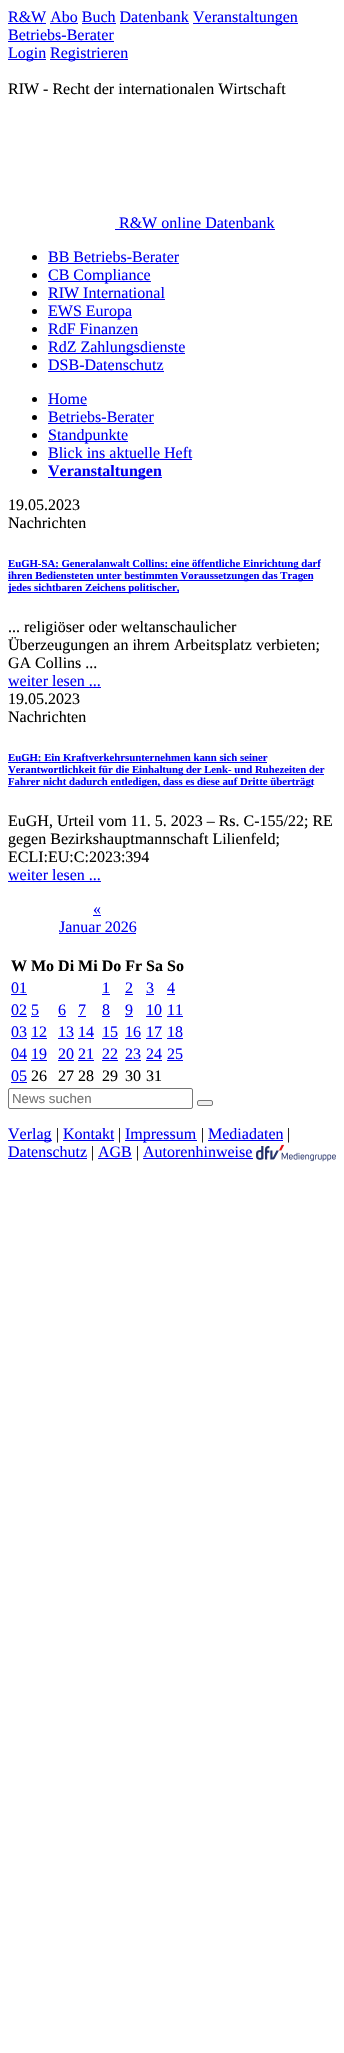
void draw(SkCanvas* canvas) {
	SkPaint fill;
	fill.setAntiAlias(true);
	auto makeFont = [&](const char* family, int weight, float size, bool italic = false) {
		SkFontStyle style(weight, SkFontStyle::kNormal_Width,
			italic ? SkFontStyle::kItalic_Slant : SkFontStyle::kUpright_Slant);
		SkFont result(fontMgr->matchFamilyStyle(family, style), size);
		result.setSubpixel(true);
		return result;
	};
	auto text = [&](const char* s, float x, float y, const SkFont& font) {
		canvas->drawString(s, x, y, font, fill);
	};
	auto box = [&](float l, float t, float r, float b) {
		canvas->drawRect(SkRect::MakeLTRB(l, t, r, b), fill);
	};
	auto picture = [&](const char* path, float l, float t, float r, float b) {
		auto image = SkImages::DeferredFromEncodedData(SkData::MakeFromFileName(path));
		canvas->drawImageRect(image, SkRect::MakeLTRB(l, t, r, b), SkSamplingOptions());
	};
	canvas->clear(0xFFFFFFFF);
	fill.setColor(0xFF0000EE);
	box(8, 23, 46, 24);
	box(193, 23, 298, 24);
	box(50, 23, 78, 24);
	box(82, 23, 116, 24);
	box(120, 23, 189, 24);
	box(8, 41, 114, 42);
	box(8, 59, 46, 60);
	box(50, 59, 128, 60);
	box(115, 229, 275, 230);
	fill.setColor(0xFF000000);
	canvas->drawCircle(34.5f, 257.5f, 2.5f, fill);
	fill.setColor(0xFF0000EE);
	box(48, 263, 179, 264);
	fill.setColor(0xFF000000);
	canvas->drawCircle(34.5f, 275.5f, 2.5f, fill);
	fill.setColor(0xFF0000EE);
	box(48, 281, 151, 282);
	fill.setColor(0xFF000000);
	canvas->drawCircle(34.5f, 293.5f, 2.5f, fill);
	fill.setColor(0xFF0000EE);
	box(48, 299, 165, 300);
	fill.setColor(0xFF000000);
	canvas->drawCircle(34.5f, 311.5f, 2.5f, fill);
	fill.setColor(0xFF0000EE);
	box(48, 317, 132, 318);
	fill.setColor(0xFF000000);
	canvas->drawCircle(34.5f, 329.5f, 2.5f, fill);
	fill.setColor(0xFF0000EE);
	box(48, 335, 138, 336);
	fill.setColor(0xFF000000);
	canvas->drawCircle(34.5f, 347.5f, 2.5f, fill);
	fill.setColor(0xFF0000EE);
	box(48, 353, 185, 354);
	fill.setColor(0xFF000000);
	canvas->drawCircle(34.5f, 365.5f, 2.5f, fill);
	fill.setColor(0xFF0000EE);
	box(48, 371, 164, 372);
	fill.setColor(0xFF000000);
	canvas->drawCircle(34.5f, 399.5f, 2.5f, fill);
	fill.setColor(0xFF0000EE);
	box(48, 405, 87, 406);
	fill.setColor(0xFF000000);
	canvas->drawCircle(34.5f, 417.5f, 2.5f, fill);
	fill.setColor(0xFF0000EE);
	box(48, 423, 154, 424);
	fill.setColor(0xFF000000);
	canvas->drawCircle(34.5f, 435.5f, 2.5f, fill);
	fill.setColor(0xFF0000EE);
	box(48, 441, 128, 442);
	fill.setColor(0xFF000000);
	canvas->drawCircle(34.5f, 453.5f, 2.5f, fill);
	fill.setColor(0xFF0000EE);
	box(48, 459, 192, 460);
	fill.setColor(0xFF000000);
	canvas->drawCircle(34.5f, 471.5f, 2.5f, fill);
	fill.setColor(0xFF0000EE);
	box(48, 477, 162, 478);
	box(8, 568, 320, 569);
	box(8, 580, 313, 581);
	box(8, 592, 179, 593);
	box(8, 687, 101, 688);
	box(8, 762, 267, 763);
	box(8, 774, 324, 775);
	box(8, 786, 313, 787);
	box(8, 881, 101, 882);
	box(93, 915, 101, 916);
	box(59, 933, 136, 934);
	box(11, 994, 27, 995);
	box(102, 994, 110, 995);
	box(125, 994, 133, 995);
	box(146, 994, 154, 995);
	box(167, 994, 175, 995);
	box(11, 1016, 27, 1017);
	box(58, 1016, 66, 1017);
	box(78, 1016, 86, 1017);
	box(102, 1016, 110, 1017);
	box(125, 1016, 133, 1017);
	box(146, 1016, 162, 1017);
	box(167, 1016, 183, 1017);
	box(31, 1016, 39, 1017);
	box(11, 1038, 27, 1039);
	box(58, 1038, 74, 1039);
	box(102, 1038, 118, 1039);
	box(125, 1038, 141, 1039);
	box(146, 1038, 162, 1039);
	box(167, 1038, 183, 1039);
	box(31, 1038, 47, 1039);
	box(78, 1038, 94, 1039);
	box(11, 1060, 27, 1061);
	box(58, 1060, 74, 1061);
	box(102, 1060, 118, 1061);
	box(125, 1060, 141, 1061);
	box(146, 1060, 162, 1061);
	box(167, 1060, 183, 1061);
	box(31, 1060, 47, 1061);
	box(78, 1060, 94, 1061);
	box(11, 1082, 27, 1083);
	fill.setStyle(SkPaint::kStroke_Style);
	fill.setStrokeWidth(1);
	fill.setColor(0xFF767676);
	canvas->drawRoundRect(SkRect::MakeLTRB(8.5f, 1088.5f, 192.5f, 1108.5f), 1.5f, 1.5f, fill);
	fill.setStyle(SkPaint::kFill_Style);
	fill.setColor(0xFFEFEFEF);
	canvas->drawRoundRect(SkRect::MakeLTRB(197.5f, 1100.5f, 212.5f, 1105.5f), 1.5f, 1.5f, fill);
	fill.setStyle(SkPaint::kStroke_Style);
	fill.setColor(0xFF767676);
	canvas->drawRoundRect(SkRect::MakeLTRB(197.5f, 1100.5f, 212.5f, 1105.5f), 1.5f, 1.5f, fill);
	fill.setStyle(SkPaint::kFill_Style);
	fill.setColor(0xFF0000EE);
	box(8, 1140, 52, 1141);
	box(63, 1140, 114, 1141);
	box(125, 1140, 197, 1141);
	box(208, 1140, 283, 1141);
	box(8, 1158, 87, 1159);
	box(98, 1158, 132, 1159);
	box(143, 1158, 253, 1159);
	picture("image0.png", 256, 1144, 336, 1162);
	auto font1 = makeFont("Liberation Serif", 400, 16);
	text("R&W Abo Buch Datenbank", 8, 22, font1);
	text("Veranstaltungen", 193, 22, font1);
	text("Betriebs-Berater", 8, 40, font1);
	text("Login", 8, 58, font1);
	text("Registrieren", 50, 58, font1);
	fill.setColor(0xFF000000);
	text("RIW - Recht der internationalen Wirtschaft", 8, 94, font1);
	fill.setColor(0xFF0000EE);
	text("R&W online Datenbank", 119, 228, font1);
	text("BB Betriebs-Berater", 48, 262, font1);
	text("CB Compliance", 48, 280, font1);
	text("RIW International", 48, 298, font1);
	text("EWS Europa", 48, 316, font1);
	text("RdF Finanzen", 48, 334, font1);
	text("RdZ Zahlungsdienste", 48, 352, font1);
	text("DSB-Datenschutz", 48, 370, font1);
	text("Home", 48, 404, font1);
	text("Betriebs-Berater", 48, 422, font1);
	text("Standpunkte", 48, 440, font1);
	text("Blick ins aktuelle Heft", 48, 458, font1);
	auto font2 = makeFont("Liberation Serif", 700, 16);
	text("Veranstaltungen", 48, 476, font2);
	fill.setColor(0xFF000000);
	text("19.05.2023", 8, 510, font1);
	text("Nachrichten", 8, 528, font1);
	auto font3 = makeFont("Liberation Serif", 700, 10.75f);
	fill.setColor(0xFF0000EE);
	text("EuGH-SA: Generalanwalt Collins: eine öffentliche Einrichtung darf", 8, 567, font3);
	text("ihren Bediensteten unter bestimmten Voraussetzungen das Tragen", 8, 579, font3);
	text("jedes sichtbaren Zeichens politischer,", 8, 591, font3);
	fill.setColor(0xFF000000);
	text("... religiöser oder weltanschaulicher", 8, 632, font1);
	text("Überzeugungen an ihrem Arbeitsplatz verbieten;", 8, 650, font1);
	text("GA Collins ...", 8, 668, font1);
	fill.setColor(0xFF0000EE);
	text("weiter lesen ...", 8, 686, font1);
	fill.setColor(0xFF000000);
	text("19.05.2023", 8, 704, font1);
	text("Nachrichten", 8, 722, font1);
	fill.setColor(0xFF0000EE);
	text("EuGH: Ein Kraftverkehrsunternehmen kann sich seiner", 8, 761, font3);
	text("Verantwortlichkeit für die Einhaltung der Lenk- und Ruhezeiten der", 8, 773, font3);
	text("Fahrer nicht dadurch entledigen, dass es diese auf Dritte überträgt", 8, 785, font3);
	fill.setColor(0xFF000000);
	text("EuGH, Urteil vom 11. 5. 2023 – Rs. C-155/22; RE", 8, 826, font1);
	text("gegen Bezirkshauptmannschaft Lilienfeld;", 8, 844, font1);
	text("ECLI:EU:C:2023:394", 8, 862, font1);
	fill.setColor(0xFF0000EE);
	text("weiter lesen ...", 8, 880, font1);
	text("«", 93, 914, font1);
	text("Januar 2026", 59, 932, font1);
	fill.setColor(0xFF000000);
	text("W Mo Di Mi Do Fr Sa So", 11, 971, font2);
	fill.setColor(0xFF0000EE);
	text("01", 11, 993, font1);
	text("1", 102, 993, font1);
	text("2", 125, 993, font1);
	text("3", 146, 993, font1);
	text("4", 167, 993, font1);
	text("02 5", 11, 1015, font1);
	text("6", 58, 1015, font1);
	text("7", 78, 1015, font1);
	text("8", 102, 1015, font1);
	text("9", 125, 1015, font1);
	text("10", 146, 1015, font1);
	text("11", 167, 1015, font1);
	text("03 12", 11, 1037, font1);
	text("13 14", 58, 1037, font1);
	text("15", 102, 1037, font1);
	text("16", 125, 1037, font1);
	text("17", 146, 1037, font1);
	text("18", 167, 1037, font1);
	text("04 19", 11, 1059, font1);
	text("20 21", 58, 1059, font1);
	text("22", 102, 1059, font1);
	text("23", 125, 1059, font1);
	text("24", 146, 1059, font1);
	text("25", 167, 1059, font1);
	text("05", 11, 1081, font1);
	fill.setColor(0xFF000000);
	text("26", 31, 1081, font1);
	text("27 28", 58, 1081, font1);
	text("29", 102, 1081, font1);
	text("30", 125, 1081, font1);
	text("31", 146, 1081, font1);
	auto font4 = makeFont("Liberation Sans", 400, 13.25f);
	fill.setColor(0xFF757575);
	text("News suchen", 12, 1103, font4);
	fill.setColor(0xFF0000EE);
	text("Verlag", 8, 1139, font1);
	fill.setColor(0xFF000000);
	text("|", 56, 1139, font1);
	fill.setColor(0xFF0000EE);
	text("Kontakt", 63, 1139, font1);
	fill.setColor(0xFF000000);
	text("|", 118, 1139, font1);
	fill.setColor(0xFF0000EE);
	text("Impressum", 125, 1139, font1);
	fill.setColor(0xFF000000);
	text("|", 201, 1139, font1);
	fill.setColor(0xFF0000EE);
	text("Mediadaten", 208, 1139, font1);
	fill.setColor(0xFF000000);
	text("|", 287, 1139, font1);
	fill.setColor(0xFF0000EE);
	text("Datenschutz", 8, 1157, font1);
	fill.setColor(0xFF000000);
	text("|", 91, 1157, font1);
	fill.setColor(0xFF0000EE);
	text("AGB", 98, 1157, font1);
	fill.setColor(0xFF000000);
	text("|", 136, 1157, font1);
	fill.setColor(0xFF0000EE);
	text("Autorenhinweise", 143, 1157, font1);
}
